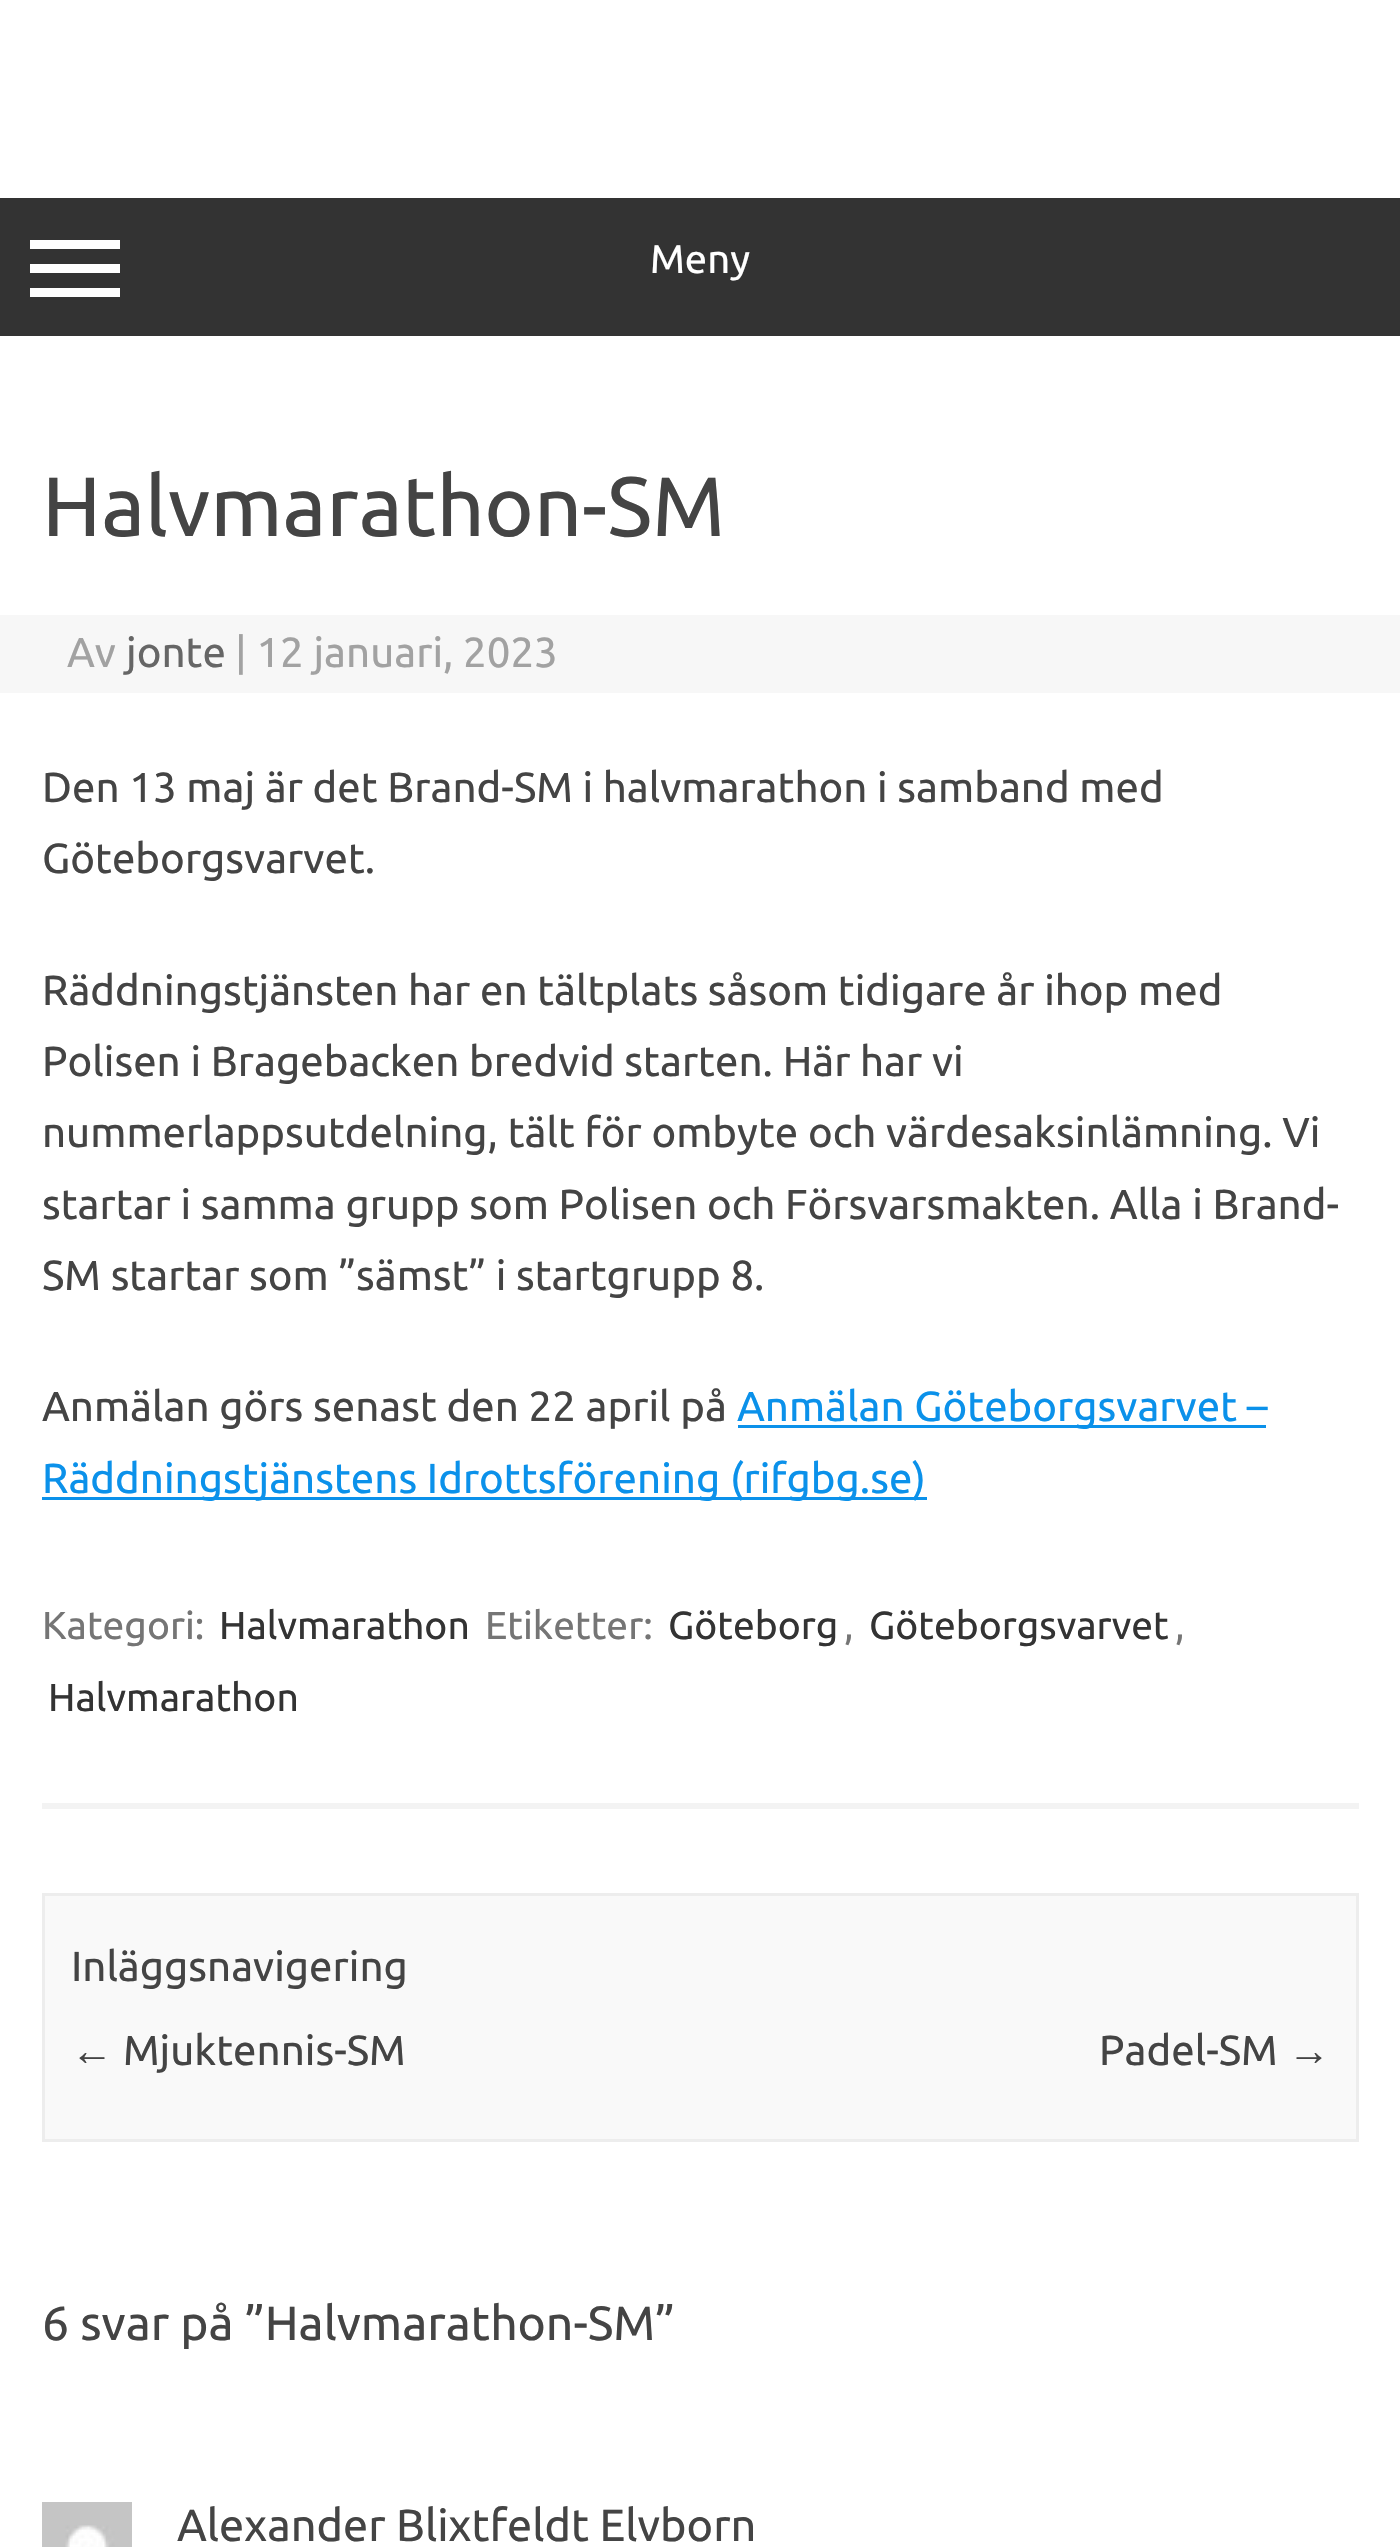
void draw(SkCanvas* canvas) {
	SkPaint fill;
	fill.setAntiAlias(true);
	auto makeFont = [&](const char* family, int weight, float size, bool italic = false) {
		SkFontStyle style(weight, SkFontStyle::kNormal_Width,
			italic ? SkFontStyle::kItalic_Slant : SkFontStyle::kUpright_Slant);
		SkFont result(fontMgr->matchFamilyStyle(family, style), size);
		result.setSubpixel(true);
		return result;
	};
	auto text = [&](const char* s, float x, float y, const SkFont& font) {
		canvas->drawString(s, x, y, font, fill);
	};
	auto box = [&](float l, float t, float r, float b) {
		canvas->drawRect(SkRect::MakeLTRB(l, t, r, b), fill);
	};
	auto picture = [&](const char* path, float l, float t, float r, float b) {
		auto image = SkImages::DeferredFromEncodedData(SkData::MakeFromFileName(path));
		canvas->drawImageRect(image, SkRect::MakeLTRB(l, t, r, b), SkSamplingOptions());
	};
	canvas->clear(0xFFFFFFFF);
	fill.setColor(0xFF333333);
	box(0, 198, 1400, 336);
	fill.setColor(0xFFFFFFFF);
	box(30, 240, 120, 249);
	box(30, 264, 120, 273);
	box(30, 288, 120, 297);
	fill.setColor(0xFFF3F3F3);
	box(42, 1803, 1359, 1809);
	fill.setColor(0xFFF7F7F7);
	box(0, 615, 1400, 693);
	fill.setColor(0xFF0B91EA);
	box(738, 1425, 1266, 1428);
	box(42, 1497, 927, 1500);
	fill.setColor(0xFFF9F9F9);
	canvas->drawRect(SkRect::MakeLTRB(43.5f, 1894.5f, 1357.5f, 2140.5f), fill);
	fill.setStyle(SkPaint::kStroke_Style);
	fill.setStrokeWidth(3);
	fill.setColor(0xFFEDEDED);
	canvas->drawRect(SkRect::MakeLTRB(43.5f, 1894.5f, 1357.5f, 2140.5f), fill);
	picture("image0.png", 42, 2502, 132, 2547);
	auto font1 = makeFont("Ubuntu", 400, 40);
	fill.setStyle(SkPaint::kFill_Style);
	fill.setColor(0xFFFFFFFF);
	text("Meny", 650, 273, font1);
	auto font2 = makeFont("Ubuntu", 400, 84);
	fill.setColor(0xFF444444);
	text("Halvmarathon-SM", 42, 536, font2);
	auto font3 = makeFont("Ubuntu", 400, 42);
	fill.setColor(0xFFA2A2A2);
	text("Av", 67, 667, font3);
	fill.setColor(0xFF666666);
	text("jonte", 126, 667, font3);
	fill.setColor(0xFFA2A2A2);
	text("| 12 januari, 2023", 235, 667, font3);
	fill.setColor(0xFF444444);
	text("Den 13 maj är det Brand-SM i halvmarathon i samband med", 42, 802, font3);
	text("Göteborgsvarvet.", 42, 873, font3);
	text("Räddningstjänsten har en tältplats såsom tidigare år ihop med", 42, 1005, font3);
	text("Polisen i Bragebacken bredvid starten. Här har vi", 42, 1076, font3);
	text("nummerlappsutdelning, tält för ombyte och värdesaksinlämning. Vi", 42, 1147, font3);
	text("startar i samma grupp som Polisen och Försvarsmakten. Alla i Brand-", 42, 1219, font3);
	text("SM startar som ”sämst” i startgrupp 8.", 42, 1290, font3);
	text("Anmälan görs senast den 22 april på", 42, 1421, font3);
	fill.setColor(0xFF0B91EA);
	text("Anmälan Göteborgsvarvet –", 737, 1421, font3);
	text("Räddningstjänstens Idrottsförening (rifgbg.se)", 42, 1493, font3);
	auto font4 = makeFont("Ubuntu", 400, 39);
	fill.setColor(0xFF757575);
	text("Kategori:", 42, 1639, font4);
	fill.setColor(0xFF333333);
	text("Halvmarathon", 219, 1639, font4);
	fill.setColor(0xFF757575);
	text("Etiketter:", 485, 1639, font4);
	fill.setColor(0xFF333333);
	text("Göteborg", 668, 1639, font4);
	fill.setColor(0xFF757575);
	text(",", 844, 1639, font4);
	fill.setColor(0xFF333333);
	text("Göteborgsvarvet", 869, 1639, font4);
	fill.setColor(0xFF757575);
	text(",", 1175, 1639, font4);
	fill.setColor(0xFF333333);
	text("Halvmarathon", 48, 1711, font4);
	fill.setColor(0xFF444444);
	text("Inläggsnavigering", 71, 1981, font3);
	auto font5 = makeFont("Liberation Sans", 400, 42);
	text("←", 71, 2065, font5);
	text("Mjuktennis-SM", 123, 2065, font3);
	text("Padel-SM", 1099, 2065, font3);
	text("→", 1288, 2065, font5);
	auto font6 = makeFont("Ubuntu", 400, 48);
	text("6 svar på ”Halvmarathon-SM”", 42, 2340, font6);
	auto font7 = makeFont("Ubuntu", 400, 45);
	text("Alexander Blixtfeldt Elvborn", 177, 2541, font7);
}
